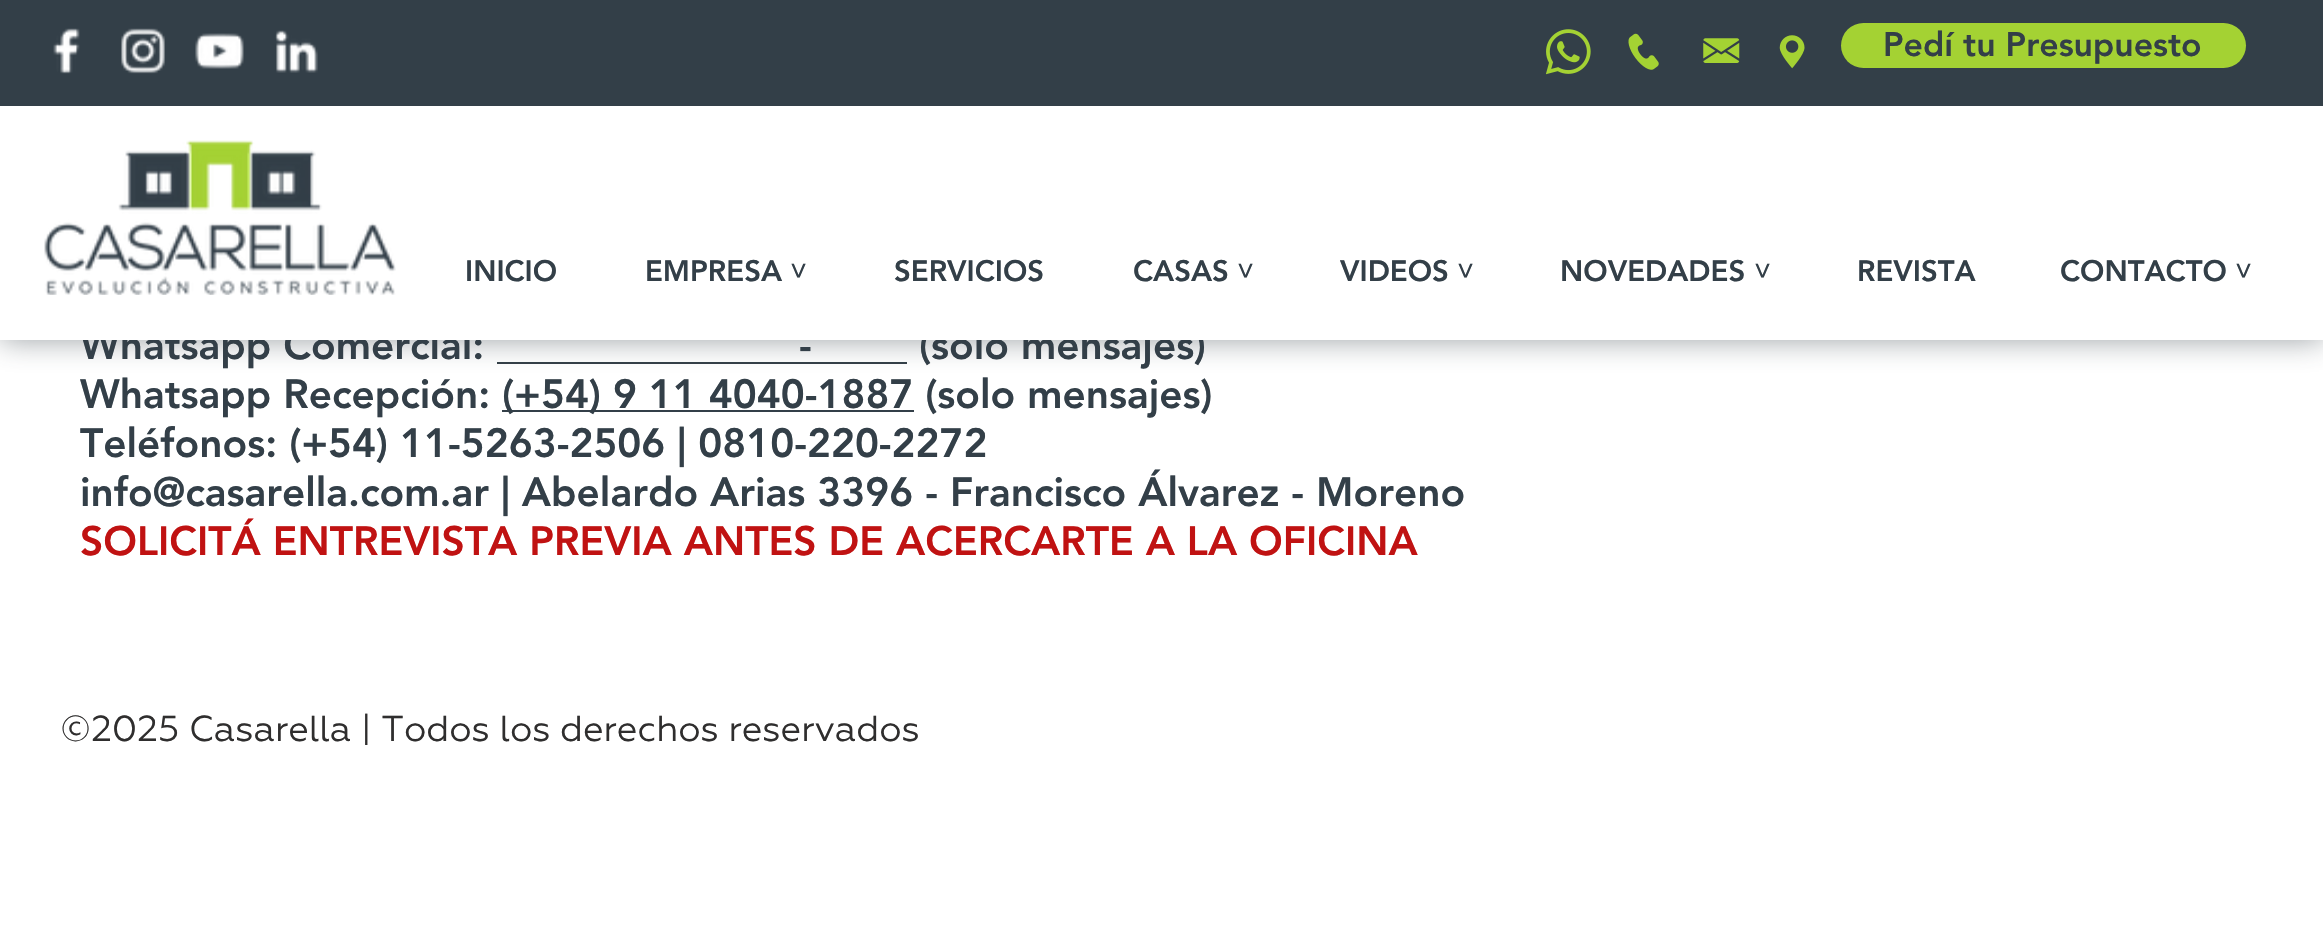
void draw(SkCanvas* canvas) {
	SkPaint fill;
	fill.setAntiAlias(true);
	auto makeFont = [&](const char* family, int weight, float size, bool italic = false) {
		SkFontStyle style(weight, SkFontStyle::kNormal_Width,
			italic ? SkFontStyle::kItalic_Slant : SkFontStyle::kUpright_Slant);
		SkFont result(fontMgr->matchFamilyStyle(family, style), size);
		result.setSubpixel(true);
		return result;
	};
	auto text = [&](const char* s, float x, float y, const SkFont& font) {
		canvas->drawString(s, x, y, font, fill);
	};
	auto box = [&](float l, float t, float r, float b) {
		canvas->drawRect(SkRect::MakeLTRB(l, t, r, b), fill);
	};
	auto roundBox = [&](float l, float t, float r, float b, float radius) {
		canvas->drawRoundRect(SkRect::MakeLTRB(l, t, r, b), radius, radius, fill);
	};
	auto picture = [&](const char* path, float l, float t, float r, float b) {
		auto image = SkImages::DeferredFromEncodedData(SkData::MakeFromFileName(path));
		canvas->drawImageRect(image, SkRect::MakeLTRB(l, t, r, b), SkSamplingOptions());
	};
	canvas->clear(0xFFFFFFFF);
	fill.setColor(0xFF333F48);
	box(497, 362, 907, 364);
	fill.setColor(0x80333F48);
	fill.setMaskFilter(SkMaskFilter::MakeBlur(kNormal_SkBlurStyle, 14.5f));
	canvas->drawRect(SkRect::MakeLTRB(0, 0, 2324, 340), fill);
	fill.setMaskFilter(nullptr);
	fill.setColor(0xFF333F48);
	box(0, 0, 2323, 106);
	picture("image0.png", 53, 28, 80, 74);
	picture("image1.png", 121, 28, 165, 74);
	picture("image2.png", 195, 33, 244, 69);
	picture("image3.png", 275, 30, 318, 73);
	picture("image4.png", 1546, 29, 1591, 75);
	picture("image5.png", 1628, 33, 1659, 70);
	picture("image6.png", 1703, 38, 1740, 63);
	picture("image7.png", 1779, 35, 1805, 69);
	fill.setColor(0xFFA4D233);
	roundBox(1841, 23, 2246, 68, 22.5f);
	fill.setColor(0xFF333F48);
	box(502, 410, 914, 412);
	auto font1 = makeFont("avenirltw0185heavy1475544", 900, 33.75f);
	text("Pedí tu Presupuesto", 1883, 56, font1);
	auto font2 = makeFont("avenirltw0185heavy1475544", 900, 40.5f);
	text("Whatsapp Comercial:", 80, 359, font2);
	text("-", 799, 359, font2);
	text("(solo mensajes)", 919, 359, font2);
	fill.setColor(0xFFFFFFFF);
	box(0, 106, 2323, 340);
	auto font3 = makeFont("Liberation Sans", 400, 29.25f);
	fill.setColor(0xFF333F48);
	text("˅", 2235, 281, font3);
	auto font4 = makeFont("avenirltw0185heavy1475544", 900, 29.25f);
	text("CONTACTO", 2060, 281, font4);
	text("REVISTA", 1857, 281, font4);
	text("˅", 1754, 281, font3);
	text("NOVEDADES", 1560, 281, font4);
	text("˅", 1457, 281, font3);
	text("VIDEOS", 1340, 281, font4);
	text("˅", 1237, 281, font3);
	text("CASAS", 1133, 281, font4);
	text("SERVICIOS", 894, 281, font4);
	text("˅", 790, 281, font3);
	text("EMPRESA", 645, 281, font4);
	text("INICIO", 465, 281, font4);
	picture("image8.png", 44, 140, 396, 295);
	text("Whatsapp Recepción:", 80, 408, font2);
	text("(+54) 9 11 4040-1887 (solo mensajes)", 502, 408, font2);
	text("Teléfonos: (+54) 11-5263-2506 | 0810-220-2272", 80, 457, font2);
	text("info@casarella.com.ar | Abelardo Arias 3396 - Francisco Álvarez - Moreno", 80, 506, font2);
	fill.setColor(0xFFC01212);
	text("SOLICITÁ ENTREVISTA PREVIA ANTES DE ACERCARTE A LA OFICINA", 80, 555, font2);
	auto font5 = makeFont("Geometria", 400, 36);
	fill.setColor(0xFF2F2E2E);
	text("©2025 Casarella | Todos los derechos reservados", 60, 741, font5);
}
